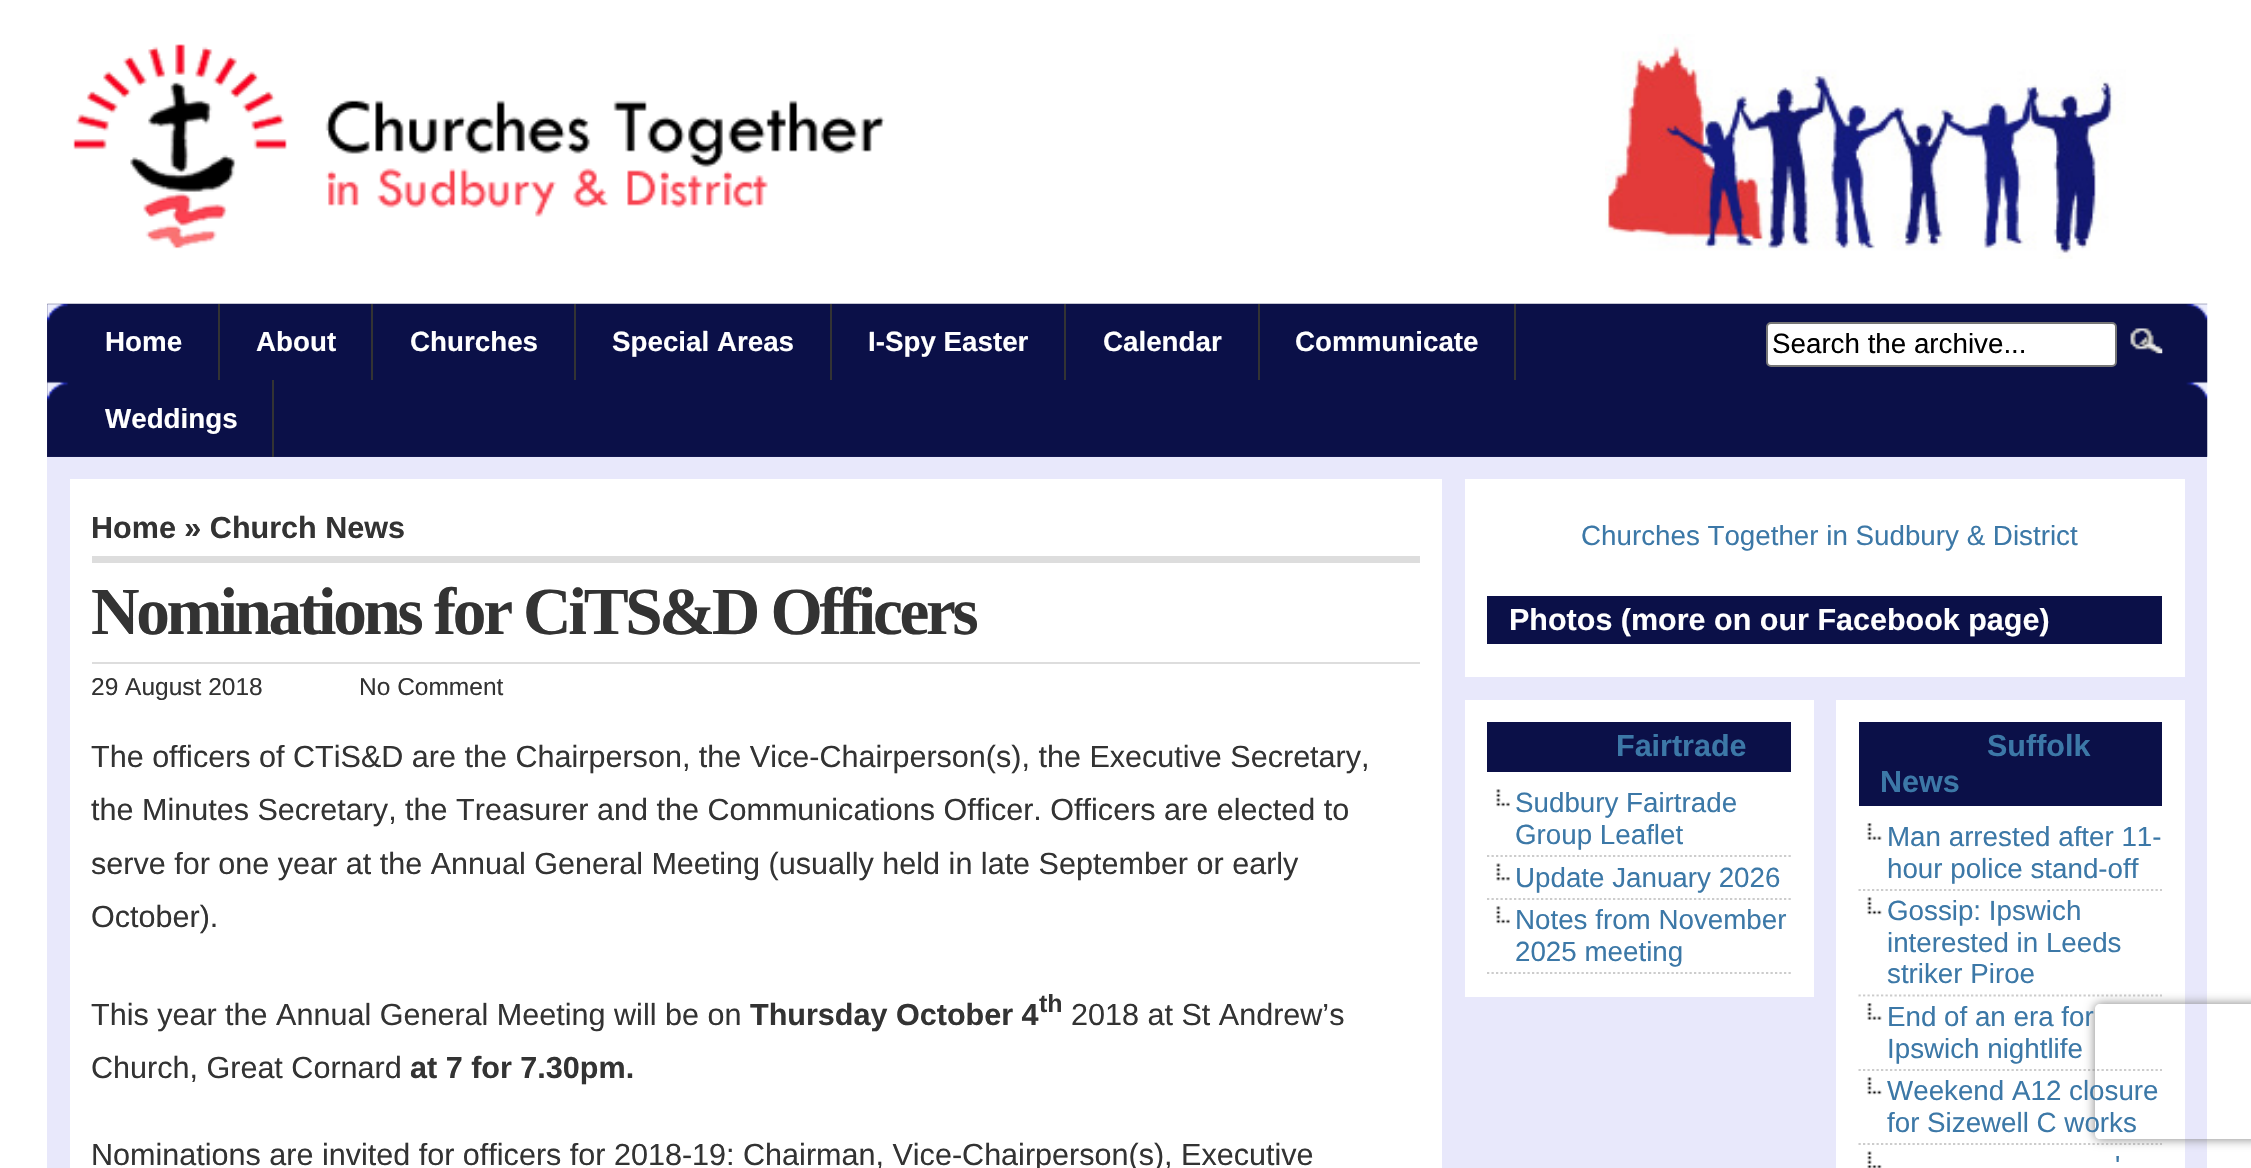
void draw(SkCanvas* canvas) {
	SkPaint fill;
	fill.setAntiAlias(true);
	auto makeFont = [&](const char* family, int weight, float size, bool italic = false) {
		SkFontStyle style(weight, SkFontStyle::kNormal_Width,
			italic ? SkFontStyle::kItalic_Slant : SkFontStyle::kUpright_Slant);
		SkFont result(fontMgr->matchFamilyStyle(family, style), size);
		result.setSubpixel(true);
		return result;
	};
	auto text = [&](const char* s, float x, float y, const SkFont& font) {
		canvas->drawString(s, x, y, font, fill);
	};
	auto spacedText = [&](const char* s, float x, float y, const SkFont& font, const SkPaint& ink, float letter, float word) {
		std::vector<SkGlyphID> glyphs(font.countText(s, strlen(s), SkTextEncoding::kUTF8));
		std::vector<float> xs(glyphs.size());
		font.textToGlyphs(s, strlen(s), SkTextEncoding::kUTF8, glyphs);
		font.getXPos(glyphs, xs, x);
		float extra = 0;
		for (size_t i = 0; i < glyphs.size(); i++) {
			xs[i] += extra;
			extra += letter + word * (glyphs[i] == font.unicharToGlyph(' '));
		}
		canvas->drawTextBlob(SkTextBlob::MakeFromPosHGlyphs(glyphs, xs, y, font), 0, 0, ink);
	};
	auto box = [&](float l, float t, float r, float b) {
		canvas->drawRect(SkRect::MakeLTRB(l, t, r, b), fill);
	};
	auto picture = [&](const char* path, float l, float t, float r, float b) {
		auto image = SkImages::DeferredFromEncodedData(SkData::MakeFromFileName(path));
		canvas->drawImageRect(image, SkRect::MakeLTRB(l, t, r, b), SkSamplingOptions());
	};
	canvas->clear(0xFFFFFFFF);
	picture("image0.png", 73, 44, 885, 249);
	picture("image1.png", 1605, 34, 2126, 259);
	fill.setColor(0xFF2C2C66);
	box(47, 304, 2207, 457);
	picture("image2.png", 47, 303, 2208, 457);
	fill.setColor(0xFF333333);
	box(218, 304, 220, 380);
	box(371, 304, 373, 380);
	box(574, 304, 576, 380);
	box(830, 304, 832, 380);
	box(1064, 304, 1066, 380);
	box(1258, 304, 1260, 380);
	box(1514, 304, 1516, 380);
	box(272, 380, 274, 457);
	fill.setColor(0xFFFFFFFF);
	canvas->drawRoundRect(SkRect::MakeLTRB(1767, 323, 2116, 366), 4, 4, fill);
	fill.setStyle(SkPaint::kStroke_Style);
	fill.setStrokeWidth(2);
	fill.setColor(0xFF767676);
	canvas->drawRoundRect(SkRect::MakeLTRB(1767, 323, 2116, 366), 4, 4, fill);
	picture("image3.png", 2130, 328, 2163, 354);
	fill.setStyle(SkPaint::kFill_Style);
	fill.setColor(0xFFE8E8FB);
	box(47, 457, 2207, 1168);
	fill.setColor(0xFFFFFFFF);
	box(70, 479, 1442, 1168);
	fill.setColor(0xFFDDDDDD);
	box(92, 556, 1420, 563);
	box(92, 662, 1420, 664);
	fill.setColor(0xFFFFFFFF);
	box(1465, 479, 2185, 677);
	fill.setColor(0xFF0B1048);
	box(1487, 596, 2162, 644);
	fill.setColor(0xFFFFFFFF);
	box(1465, 700, 1814, 997);
	fill.setColor(0xFF0B1048);
	box(1487, 722, 1791, 772);
	picture("image4.png", 1496, 789, 1510, 807);
	fill.setStyle(SkPaint::kStroke_Style);
	fill.setStrokeWidth(2.2f);
	fill.setColor(0xFFCCCCCC);
	fill.setPathEffect(SkDashPathEffect::Make({{2.25f, 2.25f}}, 0));
	canvas->drawPath(SkPathBuilder().moveTo(1487, 856).lineTo(1791, 856).detach(), fill);
	fill.setPathEffect(nullptr);
	picture("image5.png", 1496, 863, 1510, 881);
	fill.setPathEffect(SkDashPathEffect::Make({{2.25f, 2.25f}}, 0));
	canvas->drawPath(SkPathBuilder().moveTo(1487, 899).lineTo(1791, 899).detach(), fill);
	fill.setPathEffect(nullptr);
	picture("image6.png", 1488, 900, 1516, 924);
	fill.setPathEffect(SkDashPathEffect::Make({{2.25f, 2.25f}}, 0));
	canvas->drawPath(SkPathBuilder().moveTo(1487, 973).lineTo(1791, 973).detach(), fill);
	fill.setPathEffect(nullptr);
	fill.setStyle(SkPaint::kFill_Style);
	fill.setColor(0xFFFFFFFF);
	box(1836, 700, 2185, 1168);
	fill.setColor(0xFF0B1048);
	box(1859, 722, 2162, 806);
	picture("image7.png", 1867, 823, 1882, 840);
	fill.setStyle(SkPaint::kStroke_Style);
	fill.setColor(0xFFCCCCCC);
	fill.setPathEffect(SkDashPathEffect::Make({{2.25f, 2.25f}}, 0));
	canvas->drawPath(SkPathBuilder().moveTo(1858.5f, 890).lineTo(2162, 890).detach(), fill);
	fill.setPathEffect(nullptr);
	picture("image8.png", 1859, 891, 1887, 915);
	fill.setPathEffect(SkDashPathEffect::Make({{2.25f, 2.25f}}, 0));
	canvas->drawPath(SkPathBuilder().moveTo(1858.5f, 995.5f).lineTo(2162, 995.5f).detach(), fill);
	fill.setPathEffect(nullptr);
	picture("image9.png", 1859, 996, 1888, 1020);
	fill.setPathEffect(SkDashPathEffect::Make({{2.25f, 2.25f}}, 0));
	canvas->drawPath(SkPathBuilder().moveTo(1858.5f, 1070).lineTo(2162, 1070).detach(), fill);
	fill.setPathEffect(nullptr);
	picture("image8.png", 1859, 1071, 1887, 1095);
	fill.setPathEffect(SkDashPathEffect::Make({{2.25f, 2.25f}}, 0));
	canvas->drawPath(SkPathBuilder().moveTo(1858.5f, 1144).lineTo(2162, 1144).detach(), fill);
	fill.setPathEffect(nullptr);
	picture("image10.png", 1867, 1151, 1882, 1168);
	canvas->save();
	canvas->clipPath(SkPathBuilder(SkPathFillType::kEvenOdd).moveTo(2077, 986).lineTo(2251, 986).lineTo(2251, 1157).lineTo(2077, 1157).close().moveTo(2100, 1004).lineTo(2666, 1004).cubicTo(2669, 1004, 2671, 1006, 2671, 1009).lineTo(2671, 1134).cubicTo(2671, 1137, 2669, 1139, 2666, 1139).lineTo(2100, 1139).cubicTo(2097, 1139, 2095, 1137, 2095, 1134).lineTo(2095, 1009).cubicTo(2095, 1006, 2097, 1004, 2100, 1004).close().detach(), true);
	fill.setStyle(SkPaint::kFill_Style);
	fill.setColor(0xFF808080);
	fill.setMaskFilter(SkMaskFilter::MakeBlur(kNormal_SkBlurStyle, 5.5f));
	canvas->drawRoundRect(SkRect::MakeLTRB(2095, 1004, 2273, 1139), 5, 5, fill);
	fill.setMaskFilter(nullptr);
	canvas->restore();
	auto font1 = makeFont("Liberation Sans", 700, 27.75f);
	fill.setColor(0xFFFFFFFF);
	text("Home", 105, 351, font1);
	text("About", 256, 351, font1);
	text("Churches", 410, 351, font1);
	text("Special Areas", 612, 351, font1);
	text("I-Spy Easter", 868, 351, font1);
	text("Calendar", 1103, 351, font1);
	text("Communicate", 1295, 351, font1);
	text("Weddings", 105, 428, font1);
	auto font2 = makeFont("Liberation Sans", 400, 27.75f);
	fill.setColor(0xFF000000);
	text("Search the archive...", 1772, 353, font2);
	auto font3 = makeFont("Liberation Sans", 700, 30.55f);
	fill.setColor(0xFF333333);
	text("Home » Church News", 91, 538, font3);
	auto font4 = makeFont("Liberation Serif", 700, 67.25f);
	spacedText("Nominations for CiTS&D Officers", 91, 634, font4, fill, -3.35f, 0);
	auto font5 = makeFont("Liberation Sans", 400, 24.5f);
	text("29 August 2018", 91, 695, font5);
	text("No Comment", 359, 695, font5);
	auto font6 = makeFont("Liberation Sans", 400, 30.55f);
	text("The officers of CTiS&D are the Chairperson, the Vice-Chairperson(s), the Executive Secretary,", 91, 767, font6);
	text("the Minutes Secretary, the Treasurer and the Communications Officer. Officers are elected to", 91, 820, font6);
	text("serve for one year at the Annual General Meeting (usually held in late September or early", 91, 874, font6);
	text("October).", 91, 927, font6);
	text("This year the Annual General Meeting will be on", 91, 1025, font6);
	text("Thursday October 4", 750, 1025, font3);
	auto font7 = makeFont("Liberation Sans", 700, 25);
	text("th", 1039, 1012, font7);
	text("2018 at St Andrew’s", 1071, 1025, font6);
	text("Church, Great Cornard", 91, 1078, font6);
	text("at 7 for 7.30pm.", 410, 1078, font3);
	text("Nominations are invited for officers for 2018-19: Chairman, Vice-Chairperson(s), Executive", 91, 1165, font6);
	fill.setColor(0xFF3C78A7);
	text("Churches Together in Sudbury & District", 1581, 545, font2);
	auto font8 = makeFont("Liberation Sans", 700, 30.5f);
	fill.setColor(0xFFFFFFFF);
	text("Photos (more on our Facebook page)", 1509, 630, font8);
	fill.setColor(0xFF3C78A7);
	text("Fairtrade", 1616, 756, font8);
	text("Sudbury Fairtrade", 1515, 812, font2);
	text("Group Leaflet", 1515, 844, font2);
	text("Update January 2026", 1515, 887, font2);
	text("Notes from November", 1515, 929, font2);
	text("2025 meeting", 1515, 961, font2);
	text("Suffolk", 1987, 756, font8);
	text("News", 1880, 792, font8);
	text("Man arrested after 11-", 1887, 846, font2);
	text("hour police stand-off", 1887, 878, font2);
	text("Gossip: Ipswich", 1887, 920, font2);
	text("interested in Leeds", 1887, 952, font2);
	text("striker Piroe", 1887, 983, font2);
	text("End of an era for", 1887, 1026, font2);
	text("Ipswich nightlife", 1887, 1058, font2);
	text("Weekend A12 closure", 1887, 1100, font2);
	text("for Sizewell C works", 1887, 1132, font2);
	text("'", 2115, 1175, font2);
}
